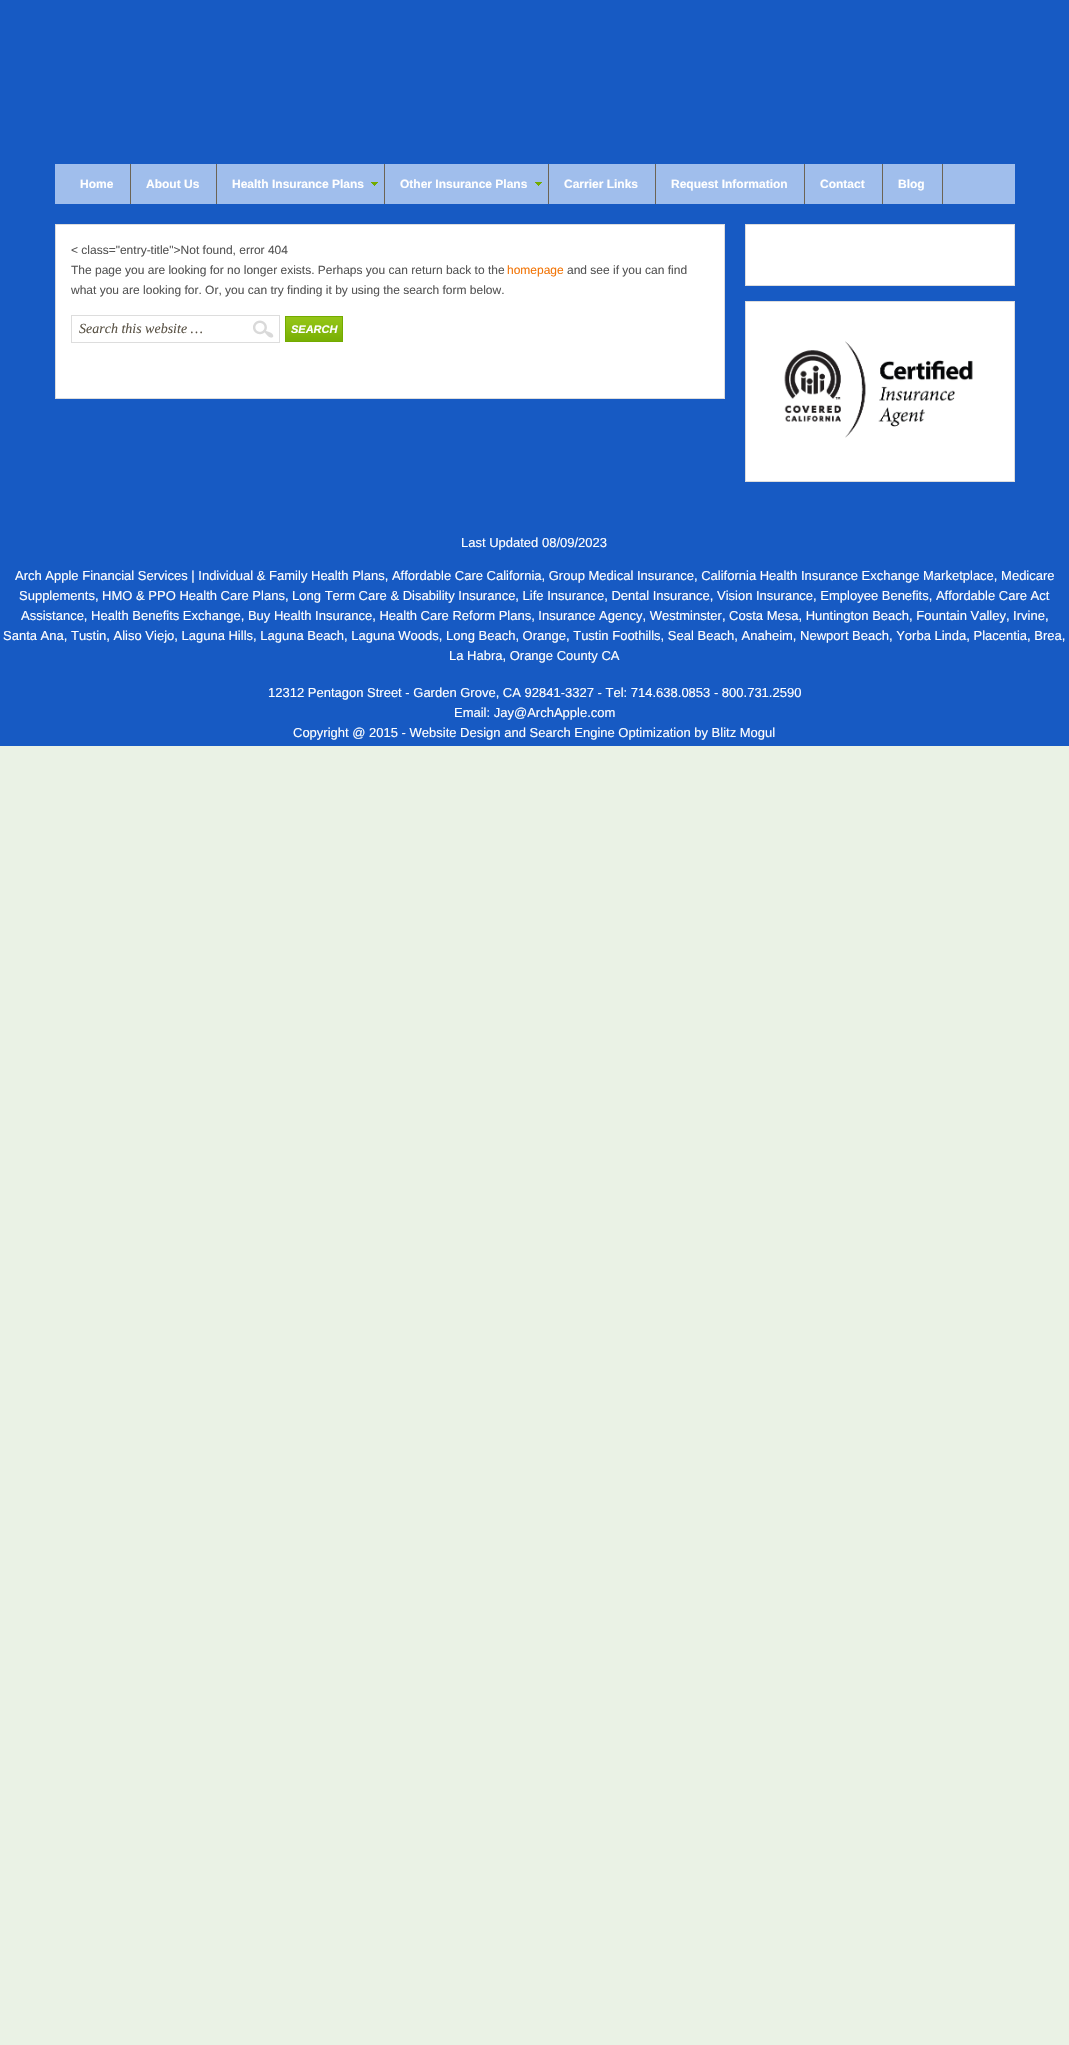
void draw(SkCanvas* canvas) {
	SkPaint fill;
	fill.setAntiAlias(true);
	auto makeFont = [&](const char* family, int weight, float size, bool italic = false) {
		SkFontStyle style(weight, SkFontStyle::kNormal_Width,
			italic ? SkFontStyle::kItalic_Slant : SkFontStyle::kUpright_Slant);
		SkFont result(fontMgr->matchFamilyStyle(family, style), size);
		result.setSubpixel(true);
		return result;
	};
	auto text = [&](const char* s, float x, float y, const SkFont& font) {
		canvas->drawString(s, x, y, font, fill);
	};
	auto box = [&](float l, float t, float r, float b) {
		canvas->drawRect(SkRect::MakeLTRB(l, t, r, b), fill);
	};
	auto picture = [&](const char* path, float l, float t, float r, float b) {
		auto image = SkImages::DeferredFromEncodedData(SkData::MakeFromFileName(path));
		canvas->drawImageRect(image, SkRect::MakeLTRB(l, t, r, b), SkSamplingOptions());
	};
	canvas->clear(0xFFEAF2E5);
	fill.setColor(0xFF175AC3);
	box(0, 0, 1069, 746);
	fill.setColor(0xFFA0BEEC);
	box(55, 164, 1015, 204);
	fill.setColor(0xFF6C6455);
	box(130, 164, 131, 204);
	box(216, 164, 217, 204);
	box(384, 164, 385, 204);
	picture("image0.png", 371, 182, 378, 186);
	box(548, 164, 549, 204);
	picture("image0.png", 535, 182, 542, 186);
	box(655, 164, 656, 204);
	box(804, 164, 805, 204);
	box(882, 164, 883, 204);
	box(942, 164, 943, 204);
	fill.setColor(0xFFFFFFFF);
	canvas->drawRect(SkRect::MakeLTRB(55.5f, 224.5f, 724.5f, 398.5f), fill);
	fill.setStyle(SkPaint::kStroke_Style);
	fill.setStrokeWidth(1);
	fill.setColor(0xFFDDDDDD);
	canvas->drawRect(SkRect::MakeLTRB(55.5f, 224.5f, 724.5f, 398.5f), fill);
	picture("image1.png", 253, 320, 274, 338);
	canvas->drawRect(SkRect::MakeLTRB(71.5f, 315.5f, 279.5f, 342.5f), fill);
	picture("image2.png", 286, 317, 342, 341);
	fill.setColor(0xFF73AB00);
	canvas->drawRect(SkRect::MakeLTRB(285.5f, 316.5f, 342.5f, 341.5f), fill);
	fill.setStyle(SkPaint::kFill_Style);
	fill.setColor(0xFFFFFFFF);
	canvas->drawRect(SkRect::MakeLTRB(745.5f, 224.5f, 1014.5f, 285.5f), fill);
	fill.setStyle(SkPaint::kStroke_Style);
	fill.setColor(0xFFDDDDDD);
	canvas->drawRect(SkRect::MakeLTRB(745.5f, 224.5f, 1014.5f, 285.5f), fill);
	fill.setStyle(SkPaint::kFill_Style);
	fill.setColor(0xFFFFFFFF);
	canvas->drawRect(SkRect::MakeLTRB(745.5f, 301.5f, 1014.5f, 481.5f), fill);
	fill.setStyle(SkPaint::kStroke_Style);
	fill.setColor(0xFFDDDDDD);
	canvas->drawRect(SkRect::MakeLTRB(745.5f, 301.5f, 1014.5f, 481.5f), fill);
	picture("image3.png", 784, 341, 973, 438);
	auto font1 = makeFont("Liberation Sans", 700, 12);
	fill.setStyle(SkPaint::kFill_Style);
	fill.setColor(0xFFFFFFFF);
	text("Home", 80, 188, font1);
	text("About Us", 146, 188, font1);
	text("Health Insurance Plans", 232, 188, font1);
	text("Other Insurance Plans", 400, 188, font1);
	text("Carrier Links", 564, 188, font1);
	text("Request Information", 671, 188, font1);
	text("Contact", 820, 188, font1);
	text("Blog", 898, 188, font1);
	auto font2 = makeFont("Liberation Sans", 400, 12);
	fill.setColor(0xFF555555);
	text("< class=\"entry-title\">Not found, error 404", 71, 254, font2);
	text("The page you are looking for no longer exists. Perhaps you can return back to the", 71, 274, font2);
	fill.setColor(0xFFF27406);
	text("homepage", 507, 274, font2);
	fill.setColor(0xFF555555);
	text("and see if you can find", 567, 274, font2);
	text("what you are looking for. Or, you can try finding it by using the search form below.", 71, 294, font2);
	auto font3 = makeFont("Liberation Serif", 400, 14, true);
	fill.setColor(0xFF5A5346);
	text("Search this website …", 79, 333, font3);
	auto font4 = makeFont("Liberation Sans", 700, 11, true);
	fill.setColor(0xFFFFFFFF);
	text("SEARCH", 291, 333, font4);
	auto font5 = makeFont("Liberation Sans", 400, 13);
	text("Last Updated 08/09/2023", 461, 547, font5);
	text("Arch Apple Financial Services | Individual & Family Health Plans, Affordable Care California, Group Medical Insurance, California Health Insurance Exchange Marketplace, Medicare", 15, 580, font5);
	text("Supplements, HMO & PPO Health Care Plans, Long Term Care & Disability Insurance, Life Insurance, Dental Insurance, Vision Insurance, Employee Benefits, Affordable Care Act", 19, 600, font5);
	text("Assistance, Health Benefits Exchange, Buy Health Insurance, Health Care Reform Plans, Insurance Agency, Westminster, Costa Mesa, Huntington Beach, Fountain Valley, Irvine,", 21, 620, font5);
	text("Santa Ana, Tustin, Aliso Viejo, Laguna Hills, Laguna Beach, Laguna Woods, Long Beach, Orange, Tustin Foothills, Seal Beach, Anaheim, Newport Beach, Yorba Linda, Placentia, Brea,", 3, 640, font5);
	text("La Habra, Orange County CA", 449, 660, font5);
	text("12312 Pentagon Street - Garden Grove, CA 92841-3327 - Tel: 714.638.0853 - 800.731.2590", 268, 697, font5);
	text("Email: Jay@ArchApple.com", 454, 717, font5);
	text("Copyright @ 2015 - Website Design and Search Engine Optimization by Blitz Mogul", 293, 737, font5);
}
